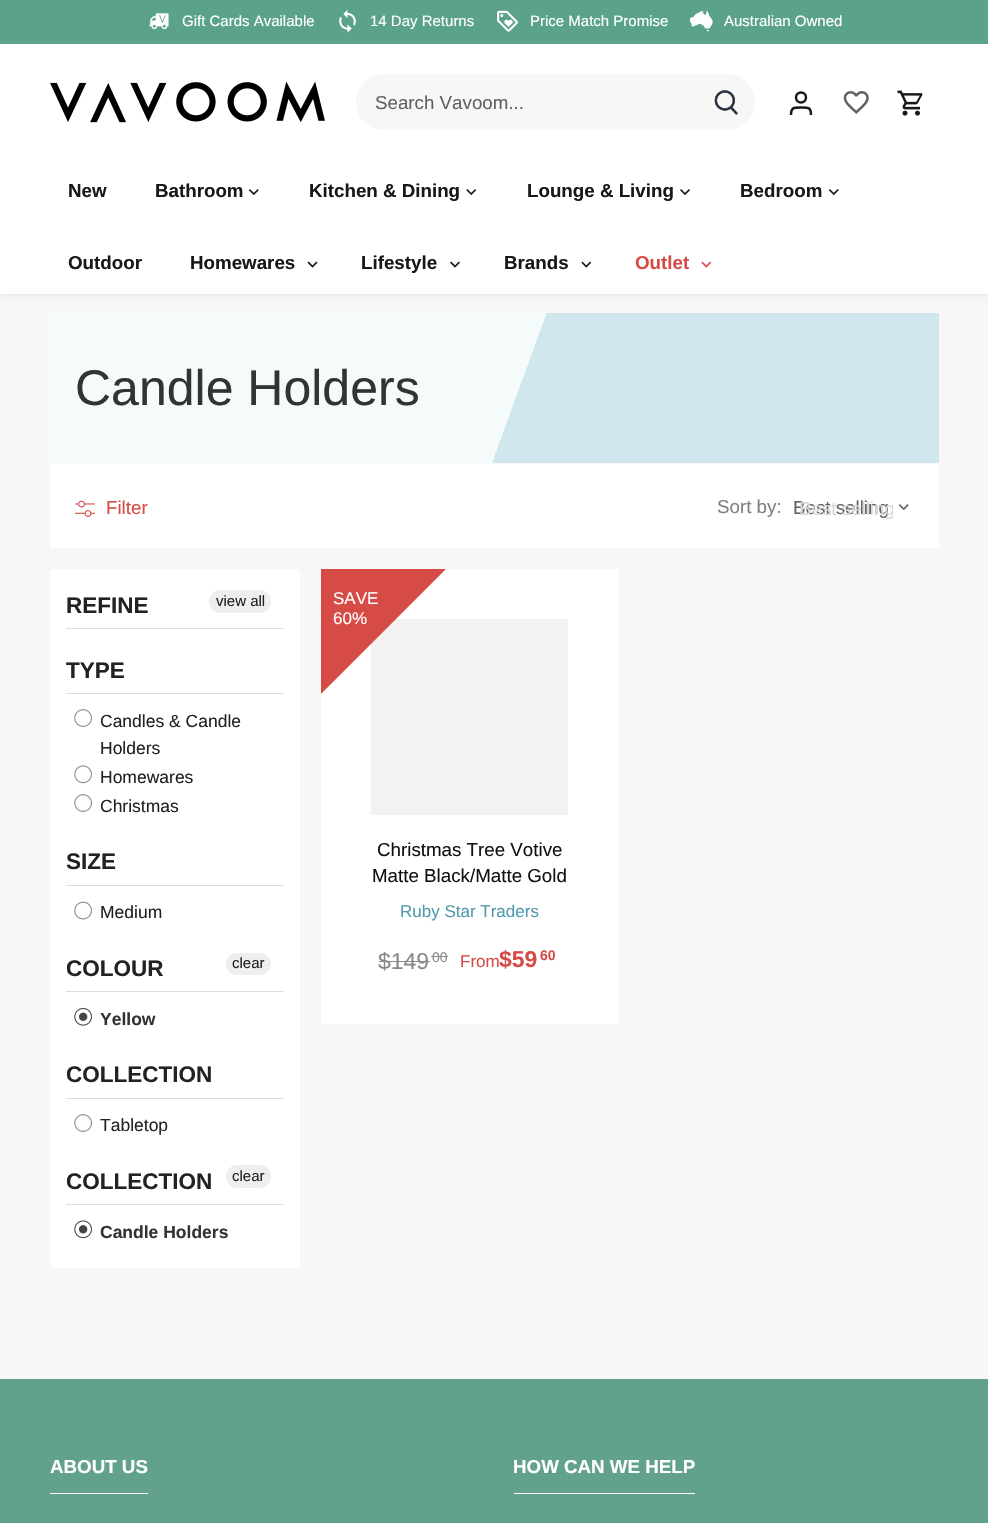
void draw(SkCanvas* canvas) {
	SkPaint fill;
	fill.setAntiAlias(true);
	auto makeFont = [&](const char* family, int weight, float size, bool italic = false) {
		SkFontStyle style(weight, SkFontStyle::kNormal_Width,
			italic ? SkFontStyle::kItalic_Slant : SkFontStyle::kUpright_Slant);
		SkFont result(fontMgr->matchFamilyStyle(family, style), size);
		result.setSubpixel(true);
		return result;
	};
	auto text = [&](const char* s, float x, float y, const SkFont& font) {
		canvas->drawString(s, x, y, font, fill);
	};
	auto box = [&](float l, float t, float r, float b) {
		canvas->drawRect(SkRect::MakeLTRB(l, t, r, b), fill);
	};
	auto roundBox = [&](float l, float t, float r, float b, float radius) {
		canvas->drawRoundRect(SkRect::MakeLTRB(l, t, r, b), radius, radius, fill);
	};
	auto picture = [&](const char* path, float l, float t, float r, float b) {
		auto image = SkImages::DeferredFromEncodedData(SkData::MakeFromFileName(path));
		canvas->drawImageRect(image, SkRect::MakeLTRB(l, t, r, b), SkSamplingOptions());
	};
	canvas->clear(0xFF62A28D);
	fill.setColor(0xFFF7F7F5);
	box(0, 294, 988, 1378);
	fill.setColor(0x14000000);
	fill.setMaskFilter(SkMaskFilter::MakeBlur(kNormal_SkBlurStyle, 2));
	canvas->drawRect(SkRect::MakeLTRB(-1, 43, 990, 295), fill);
	fill.setMaskFilter(nullptr);
	fill.setColor(0xFF5BA28C);
	box(0, 0, 988, 44);
	picture("image0.png", 149, 13, 169, 30);
	picture("image1.png", 339, 10, 356, 33);
	picture("image2.png", 497, 10, 518, 32);
	picture("image3.png", 689, 10, 713, 32);
	fill.setColor(0xFFFFFFFF);
	box(0, 44, 988, 294);
	picture("image4.png", 50, 81, 325, 123);
	fill.setColor(0xFFF7F7F5);
	roundBox(356, 74, 755, 130, 28);
	picture("image5.png", 714, 90, 738, 115);
	fill.setStyle(SkPaint::kStroke_Style);
	fill.setStrokeWidth(2.5f);
	fill.setColor(0xFF191817);
	canvas->drawCircle(801, 97.5f, 5, fill);
	canvas->drawPath(SkPathBuilder().moveTo(811, 115).cubicTo(811, 107, 808, 107.5f, 801, 107.5f).cubicTo(794.5f, 107.5f, 791, 107, 791, 115).detach(), fill);
	picture("image6.png", 843, 91, 869, 114);
	picture("image7.png", 897, 90, 923, 116);
	picture("image8.png", 248, 189, 259, 196);
	picture("image9.png", 466, 189, 477, 196);
	picture("image10.png", 680, 189, 690, 195);
	picture("image8.png", 828, 189, 839, 196);
	picture("image11.png", 307, 261, 318, 268);
	picture("image12.png", 450, 261, 460, 268);
	picture("image13.png", 581, 261, 592, 268);
	picture("image14.png", 701, 261, 712, 268);
	fill.setStyle(SkPaint::kFill_Style);
	fill.setColor(0xFFF5FAFB);
	box(50, 313, 75, 463);
	{
		const SkColor colors[] = {0xFFF5FAFB, 0xFFF5FAFB, 0xFFD1E7EE, 0xFFD1E7EE};
		const float stops[] = {0, 0.5f, 0.5f, 1};
		const SkPoint ends[] = {{103, 236}, {936, 539}};
		fill.setShader(SkGradientShader::MakeLinear(ends, colors, stops, 4, SkTileMode::kClamp));
		fill.setAlpha(255);
	}
	box(75, 313, 939, 463);
	fill.setShader(nullptr);
	fill.setColor(0xFFFFFFFF);
	box(50, 464, 939, 548);
	picture("image15.png", 75, 500, 95, 517);
	picture("image16.png", 898, 504, 909, 511);
	roundBox(50, 569, 300, 1268, 4);
	fill.setColor(0xFFDDDDDD);
	box(66, 628, 284, 629);
	fill.setColor(0xFFEEEEEE);
	roundBox(209, 590, 271, 613, 11.5f);
	fill.setColor(0xFFDDDDDD);
	box(66, 693, 284, 694);
	picture("image17.png", 74, 709, 92, 727);
	picture("image18.png", 74, 765, 92, 784);
	picture("image17.png", 74, 794, 92, 812);
	box(66, 885, 284, 886);
	picture("image19.png", 74, 901, 92, 920);
	box(66, 991, 284, 992);
	fill.setColor(0xFFEEEEEE);
	roundBox(226, 953, 271, 975, 11);
	picture("image20.png", 74, 1007, 92, 1026);
	fill.setColor(0xFFDDDDDD);
	box(66, 1098, 284, 1099);
	picture("image17.png", 74, 1114, 92, 1132);
	fill.setColor(0xFFEEEEEE);
	roundBox(226, 1165, 271, 1188, 11.5f);
	picture("image21.png", 74, 1220, 92, 1239);
	fill.setColor(0xFFDDDDDD);
	box(66, 1204, 284, 1205);
	fill.setColor(0xFFFFFFFF);
	box(321, 569, 618, 1024);
	fill.setColor(0xFFF2F2F2);
	box(371, 619, 568, 815);
	fill.setColor(0xFFD74B47);
	canvas->drawPath(SkPathBuilder().moveTo(321, 569).lineTo(446, 569).lineTo(321, 694).close().detach(), fill);
	fill.setColor(0xFF898989);
	box(379, 961, 430, 962);
	box(431, 956, 448, 957);
	fill.setColor(0xFFF5F5F5);
	box(0, 1378, 988, 1379);
	fill.setColor(0xFFFFFFFF);
	box(50, 1493, 148, 1494);
	box(514, 1493, 695, 1494);
	auto font1 = makeFont("Liberation Sans", 400, 15);
	text("Gift Cards Available", 182, 26, font1);
	text("14 Day Returns", 370, 26, font1);
	text("Price Match Promise", 530, 26, font1);
	text("Australian Owned", 724, 26, font1);
	auto font2 = makeFont("Liberation Sans", 400, 18.75f);
	fill.setColor(0xFF616161);
	text("Search Vavoom...", 375, 109, font2);
	auto font3 = makeFont("Liberation Sans", 700, 18.75f);
	fill.setColor(0xFF191817);
	text("New", 68, 197, font3);
	text("Bathroom", 155, 197, font3);
	text("Kitchen & Dining", 309, 197, font3);
	text("Lounge & Living", 527, 197, font3);
	text("Bedroom", 740, 197, font3);
	text("Outdoor", 68, 269, font3);
	text("Homewares", 190, 269, font3);
	text("Lifestyle", 361, 269, font3);
	text("Brands", 504, 269, font3);
	fill.setColor(0xFFD74B47);
	text("Outlet", 635, 269, font3);
	auto font4 = makeFont("Liberation Sans", 400, 50);
	fill.setColor(0xFF333333);
	text("Candle Holders", 75, 405, font4);
	fill.setColor(0xFFD74B47);
	text("Filter", 106, 514, font2);
	fill.setColor(0xFF818181);
	text("Sort by:", 717, 513, font2);
	fill.setColor(0xFF616161);
	text("Best selling", 793, 514, font2);
	canvas->save();
	canvas->clipRect(SkRect::MakeLTRB(800, 496, 893, 520));
	fill.setColor(0xFFD7D7D7);
	text("Best selling", 799, 515, font2);
	canvas->restore();
	auto font5 = makeFont("Liberation Sans", 700, 22.5f);
	fill.setColor(0xFF222222);
	text("REFINE", 66, 613, font5);
	text("view all", 216, 606, font1);
	text("TYPE", 66, 678, font5);
	auto font6 = makeFont("Liberation Sans", 400, 17.5f);
	text("Candles & Candle", 100, 727, font6);
	text("Holders", 100, 754, font6);
	text("Homewares", 100, 783, font6);
	text("Christmas", 100, 812, font6);
	text("SIZE", 66, 869, font5);
	text("Medium", 100, 918, font6);
	text("COLOUR", 66, 976, font5);
	text("clear", 232, 968, font1);
	auto font7 = makeFont("Liberation Sans", 700, 17.5f);
	fill.setColor(0xFF333333);
	text("Yellow", 100, 1025, font7);
	fill.setColor(0xFF222222);
	text("COLLECTION", 66, 1082, font5);
	text("Tabletop", 100, 1131, font6);
	text("clear", 232, 1181, font1);
	fill.setColor(0xFF333333);
	text("Candle Holders", 100, 1238, font7);
	fill.setColor(0xFF222222);
	text("COLLECTION", 66, 1189, font5);
	auto font8 = makeFont("Liberation Sans", 400, 17);
	fill.setColor(0xFFFFFFFF);
	text("SAVE", 333, 604, font8);
	text("60%", 333, 624, font8);
	fill.setColor(0xFF121212);
	text("Christmas Tree Votive", 377, 856, font2);
	text("Matte Black/Matte Gold", 372, 882, font2);
	fill.setColor(0xFF509BAD);
	text("Ruby Star Traders", 400, 917, font8);
	auto font9 = makeFont("Liberation Sans", 400, 23);
	fill.setColor(0xFF898989);
	text("$149", 378, 969, font9);
	auto font10 = makeFont("Liberation Sans", 400, 14);
	text("00", 432, 962, font10);
	fill.setColor(0xFFD74B47);
	text("From", 460, 967, font8);
	auto font11 = makeFont("Liberation Sans", 700, 23);
	text("$59", 499, 967, font11);
	auto font12 = makeFont("Liberation Sans", 700, 14);
	text("60", 540, 960, font12);
	fill.setColor(0xFFFFFFFF);
	text("ABOUT US", 50, 1473, font3);
	text("HOW CAN WE HELP", 513, 1473, font3);
}
